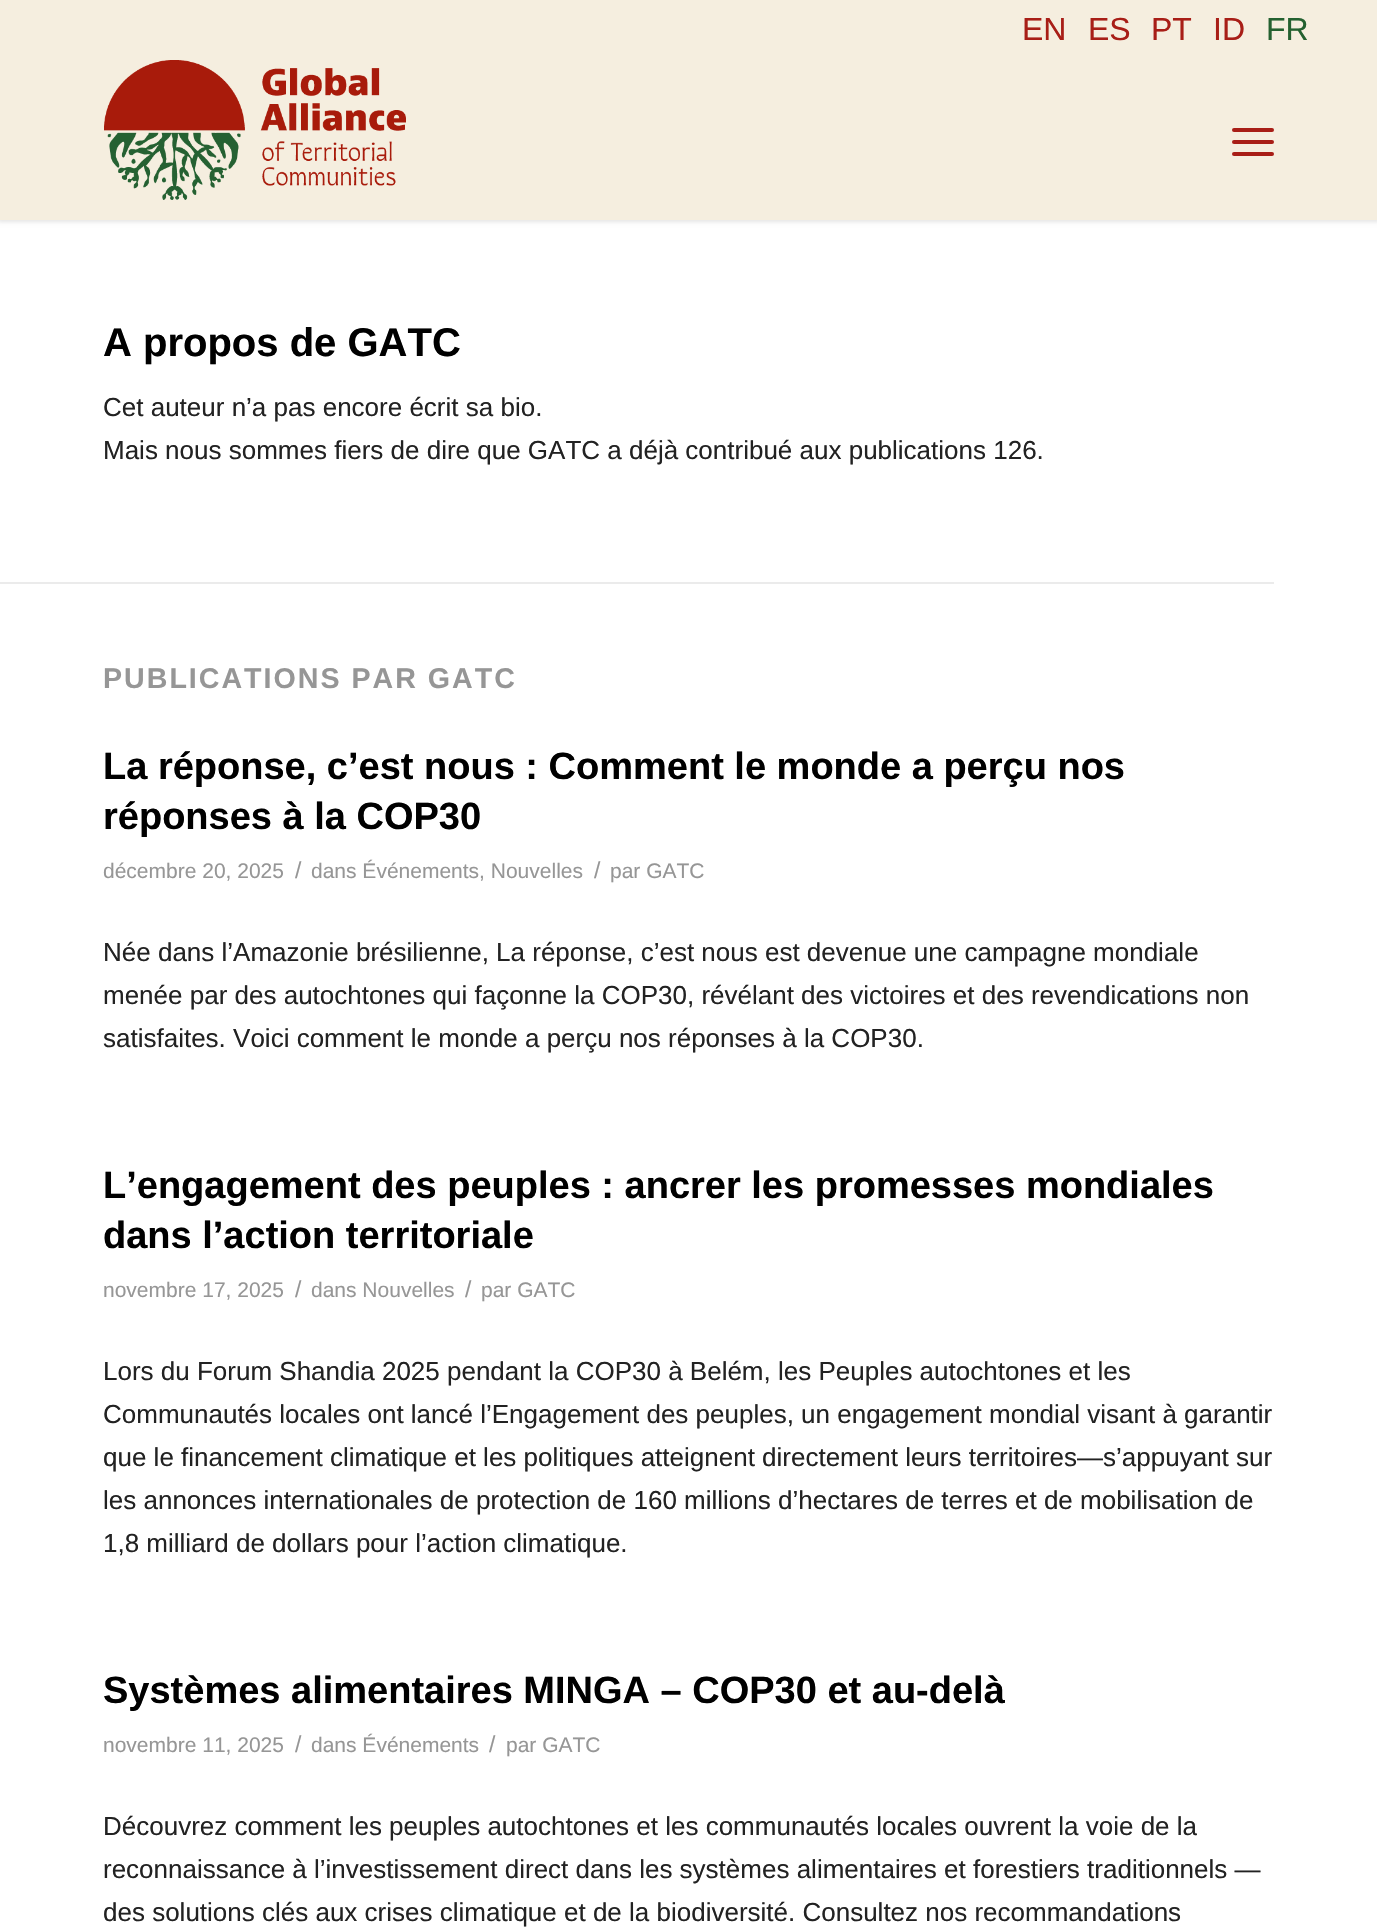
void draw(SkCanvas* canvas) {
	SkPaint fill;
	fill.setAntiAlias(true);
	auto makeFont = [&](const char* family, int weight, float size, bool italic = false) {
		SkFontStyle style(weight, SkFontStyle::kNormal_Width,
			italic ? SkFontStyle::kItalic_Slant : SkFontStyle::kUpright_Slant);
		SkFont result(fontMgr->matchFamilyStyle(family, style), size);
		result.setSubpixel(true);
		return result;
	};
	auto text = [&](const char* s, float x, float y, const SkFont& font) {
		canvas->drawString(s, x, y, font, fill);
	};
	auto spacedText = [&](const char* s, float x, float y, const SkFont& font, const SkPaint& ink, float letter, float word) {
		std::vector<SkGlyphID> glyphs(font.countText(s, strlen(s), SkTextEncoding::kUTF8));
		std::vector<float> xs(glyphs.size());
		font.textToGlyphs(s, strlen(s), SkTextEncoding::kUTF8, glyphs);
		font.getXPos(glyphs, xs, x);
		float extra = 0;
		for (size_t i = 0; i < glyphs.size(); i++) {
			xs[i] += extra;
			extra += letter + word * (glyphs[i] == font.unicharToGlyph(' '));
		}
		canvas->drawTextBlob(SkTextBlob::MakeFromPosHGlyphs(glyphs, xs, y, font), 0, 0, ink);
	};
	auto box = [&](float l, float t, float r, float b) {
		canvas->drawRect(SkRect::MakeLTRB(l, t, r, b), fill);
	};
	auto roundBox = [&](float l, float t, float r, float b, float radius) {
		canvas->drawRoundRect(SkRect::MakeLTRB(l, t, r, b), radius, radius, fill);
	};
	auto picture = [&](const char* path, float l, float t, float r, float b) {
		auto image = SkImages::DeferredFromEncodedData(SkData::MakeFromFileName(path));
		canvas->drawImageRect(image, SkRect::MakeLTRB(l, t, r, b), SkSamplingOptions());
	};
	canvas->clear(0xFFFFFFFF);
	fill.setColor(0x1A000000);
	fill.setMaskFilter(SkMaskFilter::MakeBlur(kNormal_SkBlurStyle, 2));
	canvas->drawRect(SkRect::MakeLTRB(-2, -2, 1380, 222), fill);
	fill.setMaskFilter(nullptr);
	fill.setColor(0xFFF5EEDF);
	box(0, 0, 1377, 220);
	picture("image0.png", 104, 60, 406, 200);
	fill.setColor(0xFFA81E17);
	roundBox(1232, 140, 1274, 144, 2);
	roundBox(1232, 128, 1274, 132, 2);
	roundBox(1232, 152, 1274, 156, 2);
	fill.setColor(0xFFEBEBEB);
	box(0, 582, 1274, 584);
	auto font1 = makeFont("Liberation Sans", 400, 32);
	fill.setColor(0xFFA81E17);
	text("EN", 1022, 40, font1);
	text("ES", 1088, 40, font1);
	text("PT", 1151, 40, font1);
	text("ID", 1213, 40, font1);
	fill.setColor(0xFF246130);
	text("FR", 1266, 40, font1);
	auto font2 = makeFont("Liberation Sans", 700, 40);
	fill.setColor(0xFF000000);
	text("A propos de GATC", 103, 356, font2);
	auto font3 = makeFont("Liberation Sans", 400, 26);
	fill.setColor(0xFF222222);
	text("Cet auteur n’a pas encore écrit sa bio.", 103, 416, font3);
	text("Mais nous sommes fiers de dire que GATC a déjà contribué aux publications 126.", 103, 459, font3);
	auto font4 = makeFont("Liberation Sans", 700, 28.6f);
	fill.setColor(0xFF969696);
	spacedText("PUBLICATIONS PAR GATC", 103, 688, font4, fill, 2, 0);
	auto font5 = makeFont("Liberation Sans", 700, 38);
	fill.setColor(0xFF000000);
	text("La réponse, c’est nous : Comment le monde a perçu nos", 103, 779, font5);
	text("réponses à la COP30", 103, 829, font5);
	auto font6 = makeFont("Liberation Sans", 400, 21);
	fill.setColor(0xFF969696);
	text("décembre 20, 2025", 103, 878, font6);
	auto font7 = makeFont("Liberation Sans", 400, 23);
	text("/", 295, 878, font7);
	text("dans Événements, Nouvelles", 311, 878, font6);
	text("/", 594, 878, font7);
	text("par GATC", 610, 878, font6);
	fill.setColor(0xFF222222);
	text("Née dans l’Amazonie brésilienne, La réponse, c’est nous est devenue une campagne mondiale", 103, 961, font3);
	text("menée par des autochtones qui façonne la COP30, révélant des victoires et des revendications non", 103, 1004, font3);
	text("satisfaites. Voici comment le monde a perçu nos réponses à la COP30.", 103, 1047, font3);
	fill.setColor(0xFF000000);
	text("L’engagement des peuples : ancrer les promesses mondiales", 103, 1198, font5);
	text("dans l’action territoriale", 103, 1248, font5);
	fill.setColor(0xFF969696);
	text("novembre 17, 2025", 103, 1297, font6);
	text("/", 295, 1297, font7);
	text("dans Nouvelles", 311, 1297, font6);
	text("/", 465, 1297, font7);
	text("par GATC", 481, 1297, font6);
	fill.setColor(0xFF222222);
	text("Lors du Forum Shandia 2025 pendant la COP30 à Belém, les Peuples autochtones et les", 103, 1380, font3);
	text("Communautés locales ont lancé l’Engagement des peuples, un engagement mondial visant à garantir", 103, 1423, font3);
	text("que le financement climatique et les politiques atteignent directement leurs territoires—s’appuyant sur", 103, 1466, font3);
	text("les annonces internationales de protection de 160 millions d’hectares de terres et de mobilisation de", 103, 1509, font3);
	text("1,8 milliard de dollars pour l’action climatique.", 103, 1552, font3);
	fill.setColor(0xFF000000);
	text("Systèmes alimentaires MINGA – COP30 et au-delà", 103, 1703, font5);
	fill.setColor(0xFF969696);
	text("novembre 11, 2025", 103, 1752, font6);
	text("/", 295, 1752, font7);
	text("dans Événements", 311, 1752, font6);
	text("/", 489, 1752, font7);
	text("par GATC", 506, 1752, font6);
	fill.setColor(0xFF222222);
	text("Découvrez comment les peuples autochtones et les communautés locales ouvrent la voie de la", 103, 1835, font3);
	text("reconnaissance à l’investissement direct dans les systèmes alimentaires et forestiers traditionnels —", 103, 1878, font3);
	text("des solutions clés aux crises climatique et de la biodiversité. Consultez nos recommandations", 103, 1921, font3);
}
